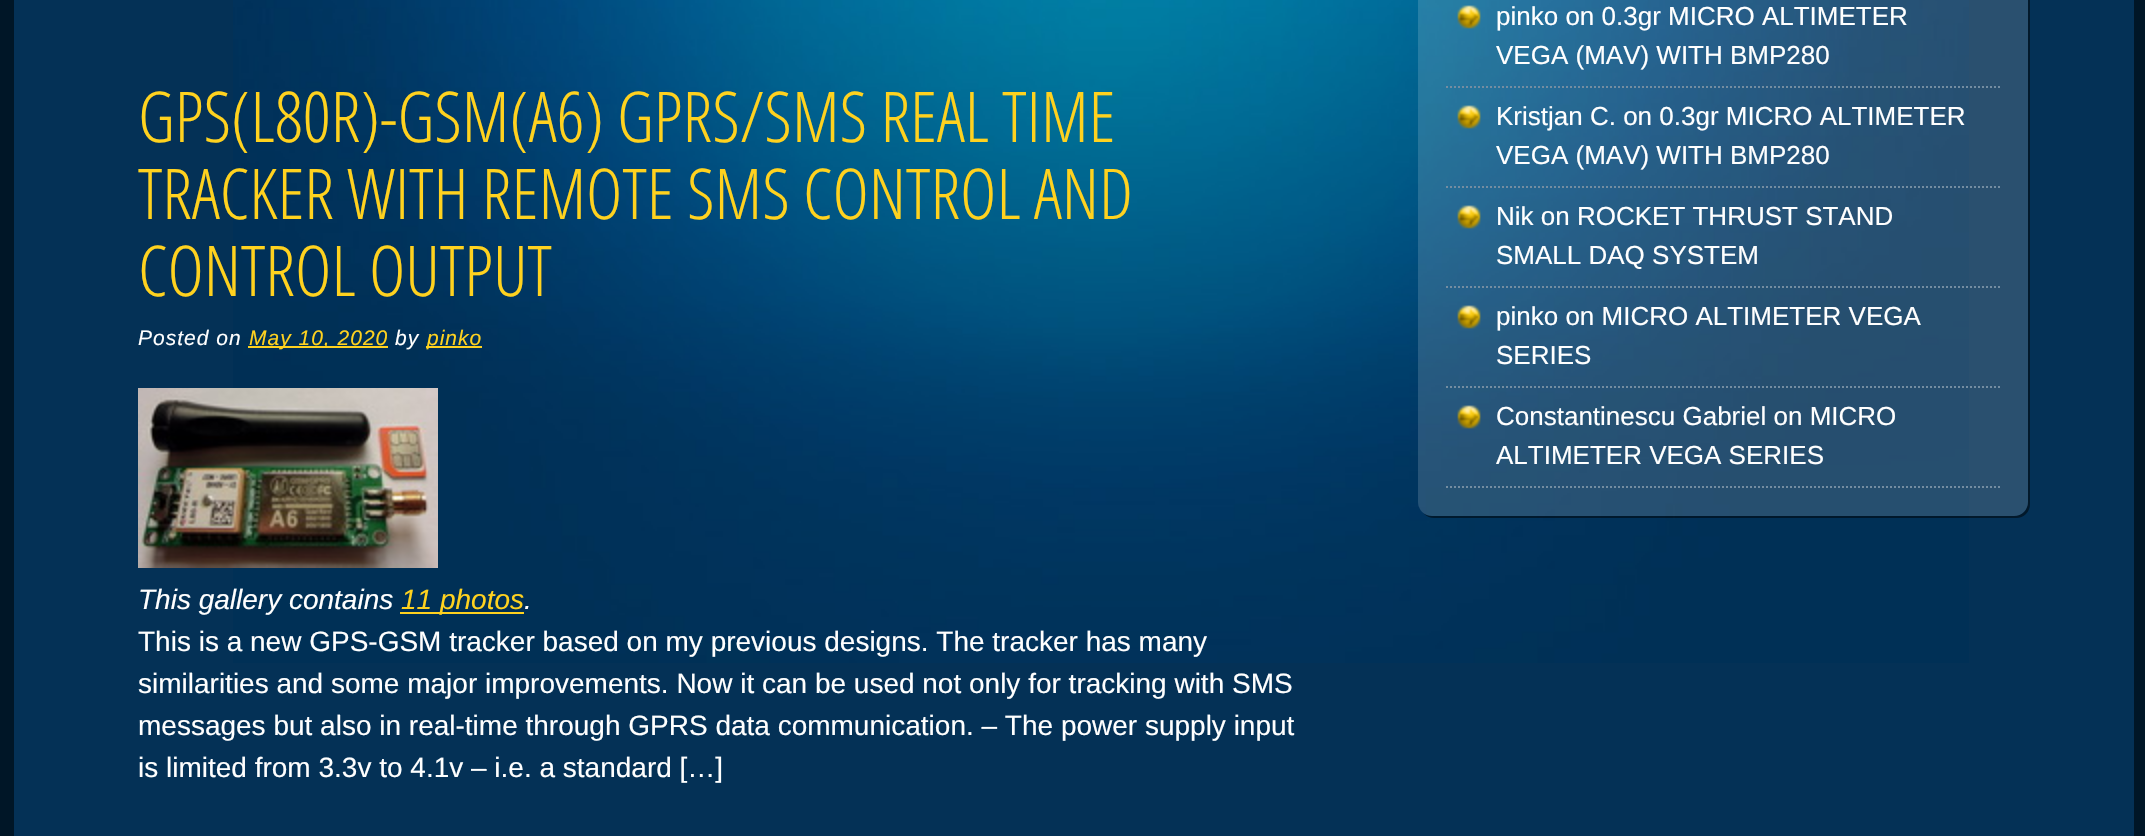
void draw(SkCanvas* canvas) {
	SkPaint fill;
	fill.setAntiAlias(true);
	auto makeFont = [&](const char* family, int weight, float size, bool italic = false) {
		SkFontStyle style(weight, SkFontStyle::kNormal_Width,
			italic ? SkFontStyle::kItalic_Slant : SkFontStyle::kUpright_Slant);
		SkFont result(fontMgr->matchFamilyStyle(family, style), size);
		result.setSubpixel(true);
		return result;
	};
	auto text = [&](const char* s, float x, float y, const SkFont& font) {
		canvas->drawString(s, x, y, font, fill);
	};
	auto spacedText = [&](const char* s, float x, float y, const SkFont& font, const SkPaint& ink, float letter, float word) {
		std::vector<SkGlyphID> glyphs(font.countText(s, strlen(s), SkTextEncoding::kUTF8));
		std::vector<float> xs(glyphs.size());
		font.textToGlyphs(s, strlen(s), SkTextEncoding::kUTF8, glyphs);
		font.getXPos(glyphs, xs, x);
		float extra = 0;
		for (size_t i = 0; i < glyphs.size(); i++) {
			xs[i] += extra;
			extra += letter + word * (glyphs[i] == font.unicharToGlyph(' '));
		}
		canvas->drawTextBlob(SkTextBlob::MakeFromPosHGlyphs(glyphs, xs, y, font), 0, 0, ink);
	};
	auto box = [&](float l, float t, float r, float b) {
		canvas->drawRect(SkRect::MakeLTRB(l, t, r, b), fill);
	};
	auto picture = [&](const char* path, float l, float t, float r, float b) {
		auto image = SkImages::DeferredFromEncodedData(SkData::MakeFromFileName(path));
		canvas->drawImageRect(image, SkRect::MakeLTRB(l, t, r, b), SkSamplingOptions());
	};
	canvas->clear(0xFF001627);
	fill.setColor(0xFF043156);
	box(14, 0, 2134, 836);
	picture("image0.png", 233, 0, 1969, 663);
	fill.setColor(0xFFFFD21F);
	box(248, 346, 388, 348);
	box(426, 346, 482, 348);
	picture("image1.png", 138, 388, 438, 568);
	box(400, 612, 524, 614);
	fill.setColor(0x80000000);
	canvas->drawPath(SkPathBuilder().moveTo(1423, 513).cubicTo(1426, 516, 1430, 518, 1434, 518).lineTo(2016, 518).cubicTo(2024, 518, 2030, 512, 2030, 504).lineTo(2030, -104).cubicTo(2030, -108, 2028, -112, 2025, -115).cubicTo(2027, -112, 2028, -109, 2028, -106).lineTo(2028, 502).cubicTo(2028, 510, 2022, 516, 2014, 516).lineTo(1432, 516).cubicTo(1429, 516, 1426, 515, 1423, 513).close().detach(), fill);
	picture("image2.png", 1418, 0, 2028, 516);
	picture("image3.png", 1457, 5, 1481, 29);
	fill.setStyle(SkPaint::kStroke_Style);
	fill.setStrokeWidth(2);
	fill.setColor(0xFF748DA1);
	fill.setPathEffect(SkDashPathEffect::Make({{2, 2}}, 0));
	canvas->drawPath(SkPathBuilder().moveTo(1446, 87).lineTo(2000, 87).detach(), fill);
	fill.setPathEffect(nullptr);
	picture("image4.png", 1457, 105, 1481, 129);
	fill.setPathEffect(SkDashPathEffect::Make({{2, 2}}, 0));
	canvas->drawPath(SkPathBuilder().moveTo(1446, 187).lineTo(2000, 187).detach(), fill);
	fill.setPathEffect(nullptr);
	picture("image5.png", 1457, 205, 1481, 229);
	fill.setPathEffect(SkDashPathEffect::Make({{2, 2}}, 0));
	canvas->drawPath(SkPathBuilder().moveTo(1446, 287).lineTo(2000, 287).detach(), fill);
	fill.setPathEffect(nullptr);
	picture("image6.png", 1457, 305, 1481, 329);
	fill.setPathEffect(SkDashPathEffect::Make({{2, 2}}, 0));
	canvas->drawPath(SkPathBuilder().moveTo(1446, 387).lineTo(2000, 387).detach(), fill);
	fill.setPathEffect(nullptr);
	picture("image7.png", 1457, 405, 1481, 429);
	fill.setPathEffect(SkDashPathEffect::Make({{2, 2}}, 0));
	canvas->drawPath(SkPathBuilder().moveTo(1446, 487).lineTo(2000, 487).detach(), fill);
	fill.setPathEffect(nullptr);
	auto font1 = makeFont("Open Sans Condensed", 300, 70);
	fill.setStyle(SkPaint::kFill_Style);
	fill.setColor(0xFFFFD21F);
	text("GPS(L80R)-GSM(A6) GPRS/SMS REAL TIME", 138, 142, font1);
	text("TRACKER WITH REMOTE SMS CONTROL AND", 138, 219, font1);
	text("CONTROL OUTPUT", 138, 296, font1);
	auto font2 = makeFont("Liberation Sans", 400, 21, true);
	fill.setColor(0xFFFFFFFF);
	spacedText("Posted on", 138, 345, font2, fill, 1, 0);
	fill.setColor(0xFFFFD21F);
	spacedText("May 10, 2020", 249, 345, font2, fill, 1, 0);
	fill.setColor(0xFFFFFFFF);
	spacedText("by", 395, 345, font2, fill, 1, 0);
	fill.setColor(0xFFFFD21F);
	spacedText("pinko", 427, 345, font2, fill, 1, 0);
	auto font3 = makeFont("Liberation Sans", 400, 28, true);
	fill.setColor(0xFFFFFFFF);
	text("This gallery contains", 138, 609, font3);
	fill.setColor(0xFFFFD21F);
	text("11 photos", 401, 609, font3);
	fill.setColor(0xFFFFFFFF);
	text(".", 524, 609, font3);
	auto font4 = makeFont("Liberation Sans", 400, 28);
	text("This is a new GPS-GSM tracker based on my previous designs. The tracker has many", 138, 651, font4);
	text("similarities and some major improvements. Now it can be used not only for tracking with SMS", 138, 693, font4);
	text("messages but also in real-time through GPRS data communication. – The power supply input", 138, 735, font4);
	text("is limited from 3.3v to 4.1v – i.e. a standard […]", 138, 777, font4);
	auto font5 = makeFont("Liberation Sans", 400, 26);
	text("pinko on 0.3gr MICRO ALTIMETER", 1496, 25, font5);
	text("VEGA (MAV) WITH BMP280", 1496, 64, font5);
	text("Kristjan C. on 0.3gr MICRO ALTIMETER", 1496, 125, font5);
	text("VEGA (MAV) WITH BMP280", 1496, 164, font5);
	text("Nik on ROCKET THRUST STAND", 1496, 225, font5);
	text("SMALL DAQ SYSTEM", 1496, 264, font5);
	text("pinko on MICRO ALTIMETER VEGA", 1496, 325, font5);
	text("SERIES", 1496, 364, font5);
	text("Constantinescu Gabriel on MICRO", 1496, 425, font5);
	text("ALTIMETER VEGA SERIES", 1496, 464, font5);
}
